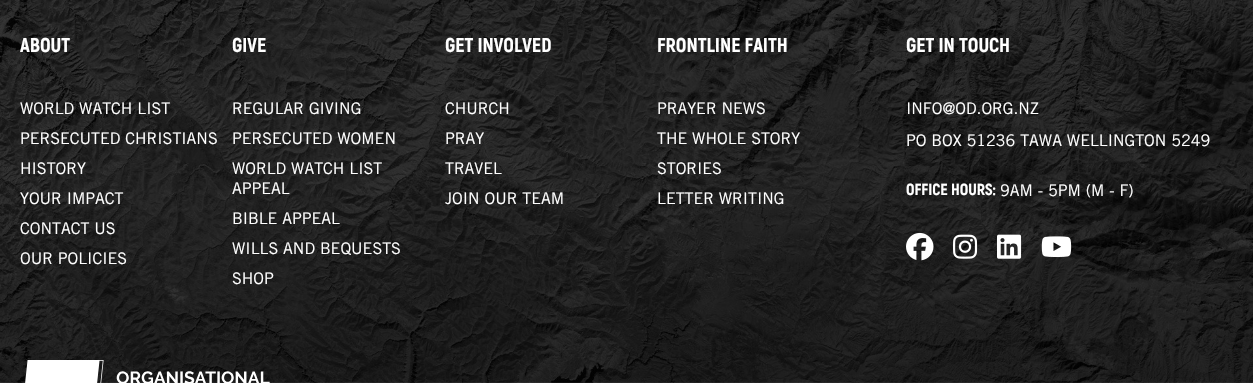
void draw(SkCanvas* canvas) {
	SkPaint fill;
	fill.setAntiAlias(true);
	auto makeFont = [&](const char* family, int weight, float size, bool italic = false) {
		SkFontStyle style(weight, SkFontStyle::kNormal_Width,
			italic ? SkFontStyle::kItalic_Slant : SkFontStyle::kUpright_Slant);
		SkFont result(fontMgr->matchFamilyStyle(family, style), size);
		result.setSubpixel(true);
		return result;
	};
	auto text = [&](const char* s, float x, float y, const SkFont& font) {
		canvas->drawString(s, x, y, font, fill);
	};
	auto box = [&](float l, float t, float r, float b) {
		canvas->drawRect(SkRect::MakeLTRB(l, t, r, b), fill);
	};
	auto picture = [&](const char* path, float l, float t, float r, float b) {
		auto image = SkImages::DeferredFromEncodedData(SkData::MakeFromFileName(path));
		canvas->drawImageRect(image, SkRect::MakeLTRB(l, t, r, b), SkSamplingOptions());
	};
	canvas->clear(0xFFFFFFFF);
	picture("image0.png", 0, 0, 1253, 383);
	{
		const SkColor colors[] = {0x00000000, 0xCC000000};
		const float stops[] = {0, 1};
		const SkPoint ends[] = {{627, 168}, {627, 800}};
		fill.setShader(SkGradientShader::MakeLinear(ends, colors, stops, 2, SkTileMode::kClamp));
		fill.setAlpha(255);
	}
	box(0, 210, 1253, 383);
	picture("image1.png", 906, 232, 934, 261);
	picture("image2.png", 953, 234, 978, 259);
	picture("image3.png", 997, 234, 1022, 259);
	picture("image4.png", 1041, 236, 1072, 257);
	picture("image5.png", 25, 360, 270, 383);
	auto font1 = makeFont("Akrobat", 800, 20);
	fill.setShader(nullptr);
	fill.setColor(0xFFFFFFFF);
	text("ABOUT", 20, 52, font1);
	auto font2 = makeFont("Trade Gothic", 400, 16);
	text("WORLD WATCH LIST", 20, 114, font2);
	text("PERSECUTED CHRISTIANS", 20, 144, font2);
	text("HISTORY", 20, 174, font2);
	text("YOUR IMPACT", 20, 204, font2);
	text("CONTACT US", 20, 234, font2);
	text("OUR POLICIES", 20, 264, font2);
	text("GIVE", 232, 52, font1);
	text("REGULAR GIVING", 232, 114, font2);
	text("PERSECUTED WOMEN", 232, 144, font2);
	text("WORLD WATCH LIST", 232, 174, font2);
	text("APPEAL", 232, 194, font2);
	text("BIBLE APPEAL", 232, 224, font2);
	text("WILLS AND BEQUESTS", 232, 254, font2);
	text("SHOP", 232, 284, font2);
	text("GET INVOLVED", 445, 52, font1);
	text("CHURCH", 445, 114, font2);
	text("PRAY", 445, 144, font2);
	text("TRAVEL", 445, 174, font2);
	text("JOIN OUR TEAM", 445, 204, font2);
	text("FRONTLINE FAITH", 657, 52, font1);
	text("PRAYER NEWS", 657, 114, font2);
	text("THE WHOLE STORY", 657, 144, font2);
	text("STORIES", 657, 174, font2);
	text("LETTER WRITING", 657, 204, font2);
	text("GET IN TOUCH", 906, 52, font1);
	text("INFO@OD.ORG.NZ", 906, 114, font2);
	text("PO BOX 51236 TAWA WELLINGTON 5249", 906, 146, font2);
	auto font3 = makeFont("Akrobat", 800, 16);
	text("OFFICE HOURS:", 906, 195, font3);
	text("9AM - 5PM (M - F)", 1000, 196, font2);
}
